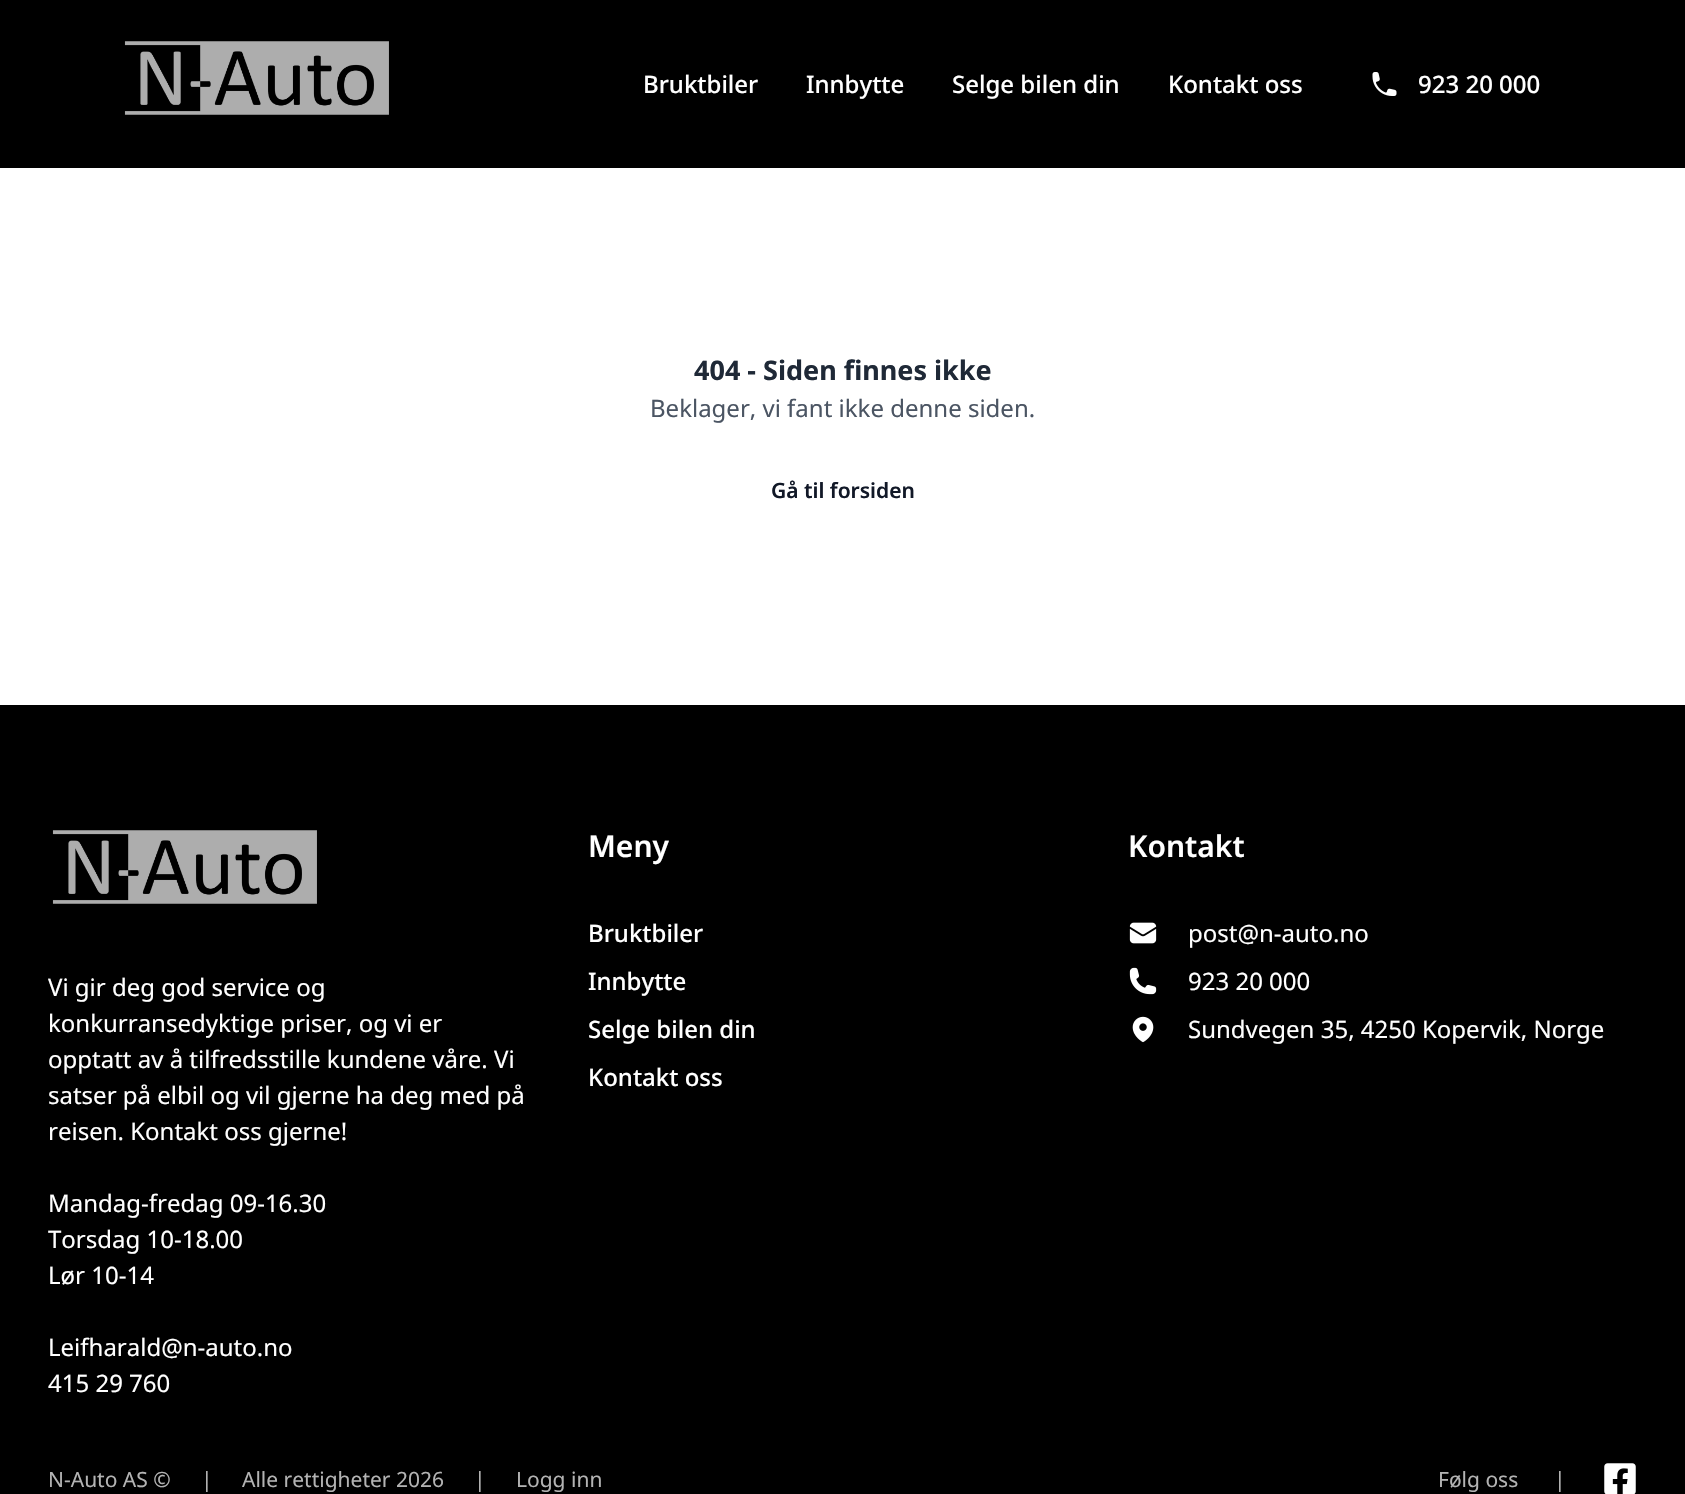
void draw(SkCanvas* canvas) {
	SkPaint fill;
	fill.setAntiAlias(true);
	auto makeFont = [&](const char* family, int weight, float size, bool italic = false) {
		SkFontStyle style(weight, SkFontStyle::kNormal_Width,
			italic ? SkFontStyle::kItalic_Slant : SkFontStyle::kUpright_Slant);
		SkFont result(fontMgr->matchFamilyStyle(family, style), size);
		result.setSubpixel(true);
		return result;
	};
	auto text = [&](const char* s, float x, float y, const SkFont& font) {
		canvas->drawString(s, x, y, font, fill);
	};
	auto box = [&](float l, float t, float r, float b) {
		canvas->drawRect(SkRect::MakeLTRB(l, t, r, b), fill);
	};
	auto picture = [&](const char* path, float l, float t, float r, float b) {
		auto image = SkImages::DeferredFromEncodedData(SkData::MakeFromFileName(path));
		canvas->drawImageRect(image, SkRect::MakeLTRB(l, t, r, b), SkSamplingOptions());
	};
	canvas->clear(0xFFFFFFFF);
	fill.setColor(0xFF000000);
	box(0, 0, 1685, 168);
	picture("image0.png", 124, 41, 389, 115);
	picture("image1.png", 1372, 72, 1397, 96);
	box(0, 705, 1685, 1494);
	picture("image0.png", 52, 830, 317, 904);
	picture("image2.png", 1129, 922, 1157, 944);
	picture("image3.png", 1129, 967, 1157, 995);
	picture("image4.png", 1132, 1016, 1154, 1043);
	picture("image5.png", 1604, 1463, 1636, 1494);
	auto font1 = makeFont("Noto Sans", 500, 24);
	fill.setColor(0xFFFFFFFF);
	text("Bruktbiler", 643, 93, font1);
	text("Innbytte", 806, 93, font1);
	text("Selge bilen din", 952, 93, font1);
	text("Kontakt oss", 1168, 93, font1);
	text("923 20 000", 1418, 93, font1);
	auto font2 = makeFont("Noto Sans", 700, 27);
	fill.setColor(0xFF1F2937);
	text("404 - Siden finnes ikke", 694, 380, font2);
	auto font3 = makeFont("Noto Sans", 400, 24);
	fill.setColor(0xFF4B5563);
	text("Beklager, vi fant ikke denne siden.", 650, 417, font3);
	auto font4 = makeFont("Noto Sans", 600, 21);
	fill.setColor(0xFF111827);
	text("Gå til forsiden", 771, 498, font4);
	fill.setColor(0xFFFFFFFF);
	text("Vi gir deg god service og", 48, 996, font3);
	text("konkurransedyktige priser, og vi er", 48, 1032, font3);
	text("opptatt av å tilfredsstille kundene våre. Vi", 48, 1068, font3);
	text("satser på elbil og vil gjerne ha deg med på", 48, 1104, font3);
	text("reisen. Kontakt oss gjerne!", 48, 1140, font3);
	text("Mandag-fredag 09-16.30", 48, 1212, font3);
	text("Torsdag 10-18.00", 48, 1248, font3);
	text("Lør 10-14", 48, 1284, font3);
	text("Leifharald@n-auto.no", 48, 1356, font3);
	text("415 29 760", 48, 1392, font3);
	auto font5 = makeFont("Noto Sans", 600, 30);
	text("Meny", 588, 857, font5);
	text("Bruktbiler", 588, 942, font1);
	text("Innbytte", 588, 990, font1);
	text("Selge bilen din", 588, 1038, font1);
	text("Kontakt oss", 588, 1086, font1);
	text("Kontakt", 1128, 857, font5);
	text("post@n-auto.no", 1188, 942, font3);
	text("923 20 000", 1188, 990, font3);
	text("Sundvegen 35, 4250 Kopervik, Norge", 1188, 1038, font3);
	auto font6 = makeFont("Noto Sans", 400, 21);
	fill.setColor(0xFFB3B3B3);
	text("N-Auto AS ©", 48, 1487, font6);
	text("|", 201, 1487, font6);
	text("Alle rettigheter 2026", 242, 1487, font6);
	text("|", 474, 1487, font6);
	text("Logg inn", 516, 1487, font6);
	text("Følg oss", 1438, 1487, font6);
	text("|", 1554, 1487, font6);
}
